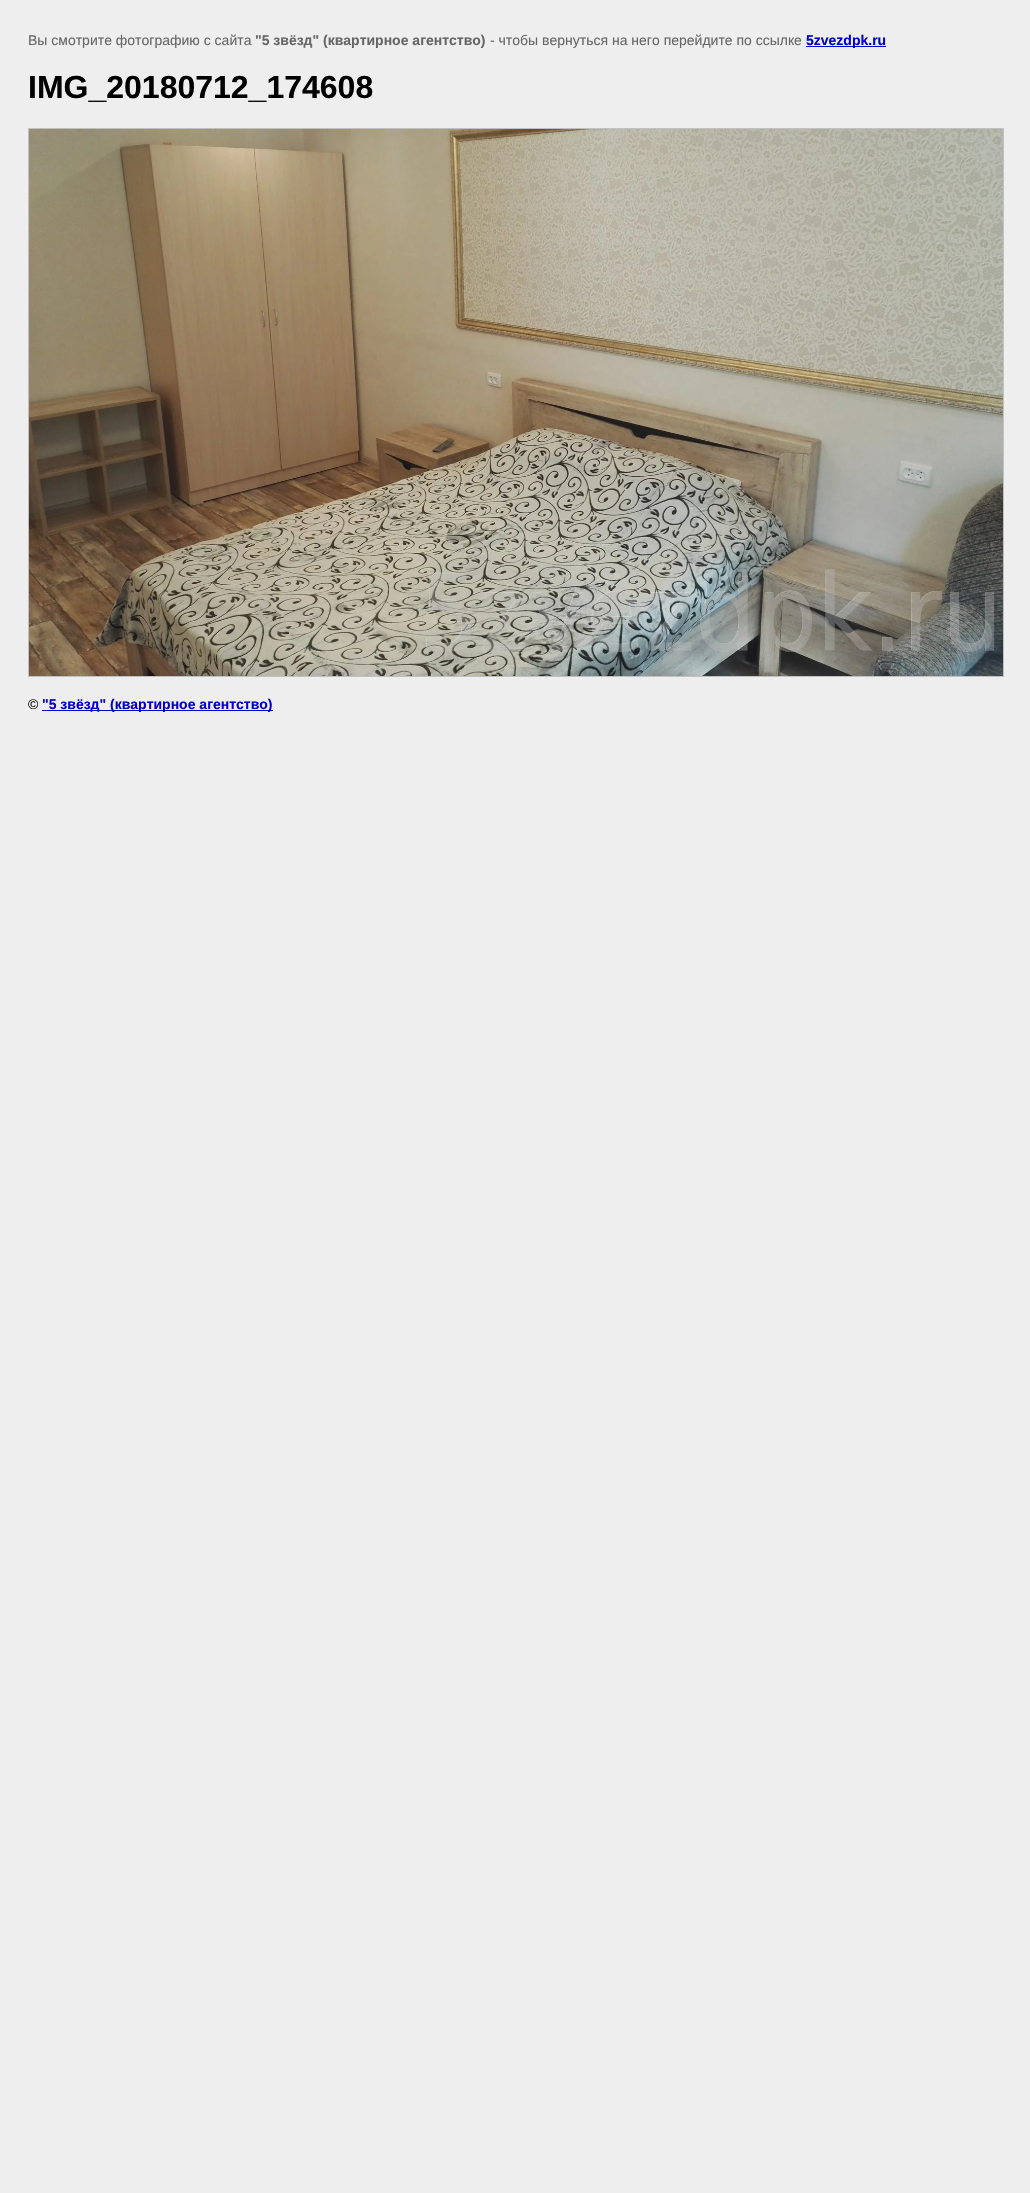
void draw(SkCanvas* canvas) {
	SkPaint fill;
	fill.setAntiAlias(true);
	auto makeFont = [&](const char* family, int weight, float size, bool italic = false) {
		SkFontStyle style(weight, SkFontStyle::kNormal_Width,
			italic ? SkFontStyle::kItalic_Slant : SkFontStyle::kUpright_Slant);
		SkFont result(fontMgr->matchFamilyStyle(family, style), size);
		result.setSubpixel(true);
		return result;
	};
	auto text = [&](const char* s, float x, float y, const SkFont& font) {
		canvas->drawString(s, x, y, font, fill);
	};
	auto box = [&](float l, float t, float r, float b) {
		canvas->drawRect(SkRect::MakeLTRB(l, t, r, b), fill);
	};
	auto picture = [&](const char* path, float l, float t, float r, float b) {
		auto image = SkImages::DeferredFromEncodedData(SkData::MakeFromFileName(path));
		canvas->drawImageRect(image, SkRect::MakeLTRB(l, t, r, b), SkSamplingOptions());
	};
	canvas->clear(0xFFEEEEEE);
	fill.setColor(0xFF0000CC);
	box(806, 46, 886, 47);
	fill.setStyle(SkPaint::kStroke_Style);
	fill.setStrokeWidth(1);
	fill.setColor(0xFFC0C0C0);
	canvas->drawRect(SkRect::MakeLTRB(28.5f, 128.5f, 1003.5f, 676.5f), fill);
	picture("image0.png", 29, 129, 1003, 676);
	fill.setStyle(SkPaint::kFill_Style);
	fill.setColor(0xFF0000CC);
	box(42, 710, 273, 711);
	auto font1 = makeFont("Liberation Sans", 400, 14);
	fill.setColor(0xFF666666);
	text("Вы смотрите фотографию с сайта", 28, 45, font1);
	auto font2 = makeFont("Liberation Sans", 700, 14);
	text("\"5 звёзд\" (квартирное агентство)", 255, 45, font2);
	text("- чтобы вернуться на него перейдите по ссылке", 490, 45, font1);
	fill.setColor(0xFF0000CC);
	text("5zvezdpk.ru", 806, 45, font2);
	auto font3 = makeFont("Liberation Sans", 700, 32);
	fill.setColor(0xFF000000);
	text("IMG_20180712_174608", 28, 98, font3);
	text("©", 28, 709, font1);
	fill.setColor(0xFF0000CC);
	text("\"5 звёзд\" (квартирное агентство)", 42, 709, font2);
}
